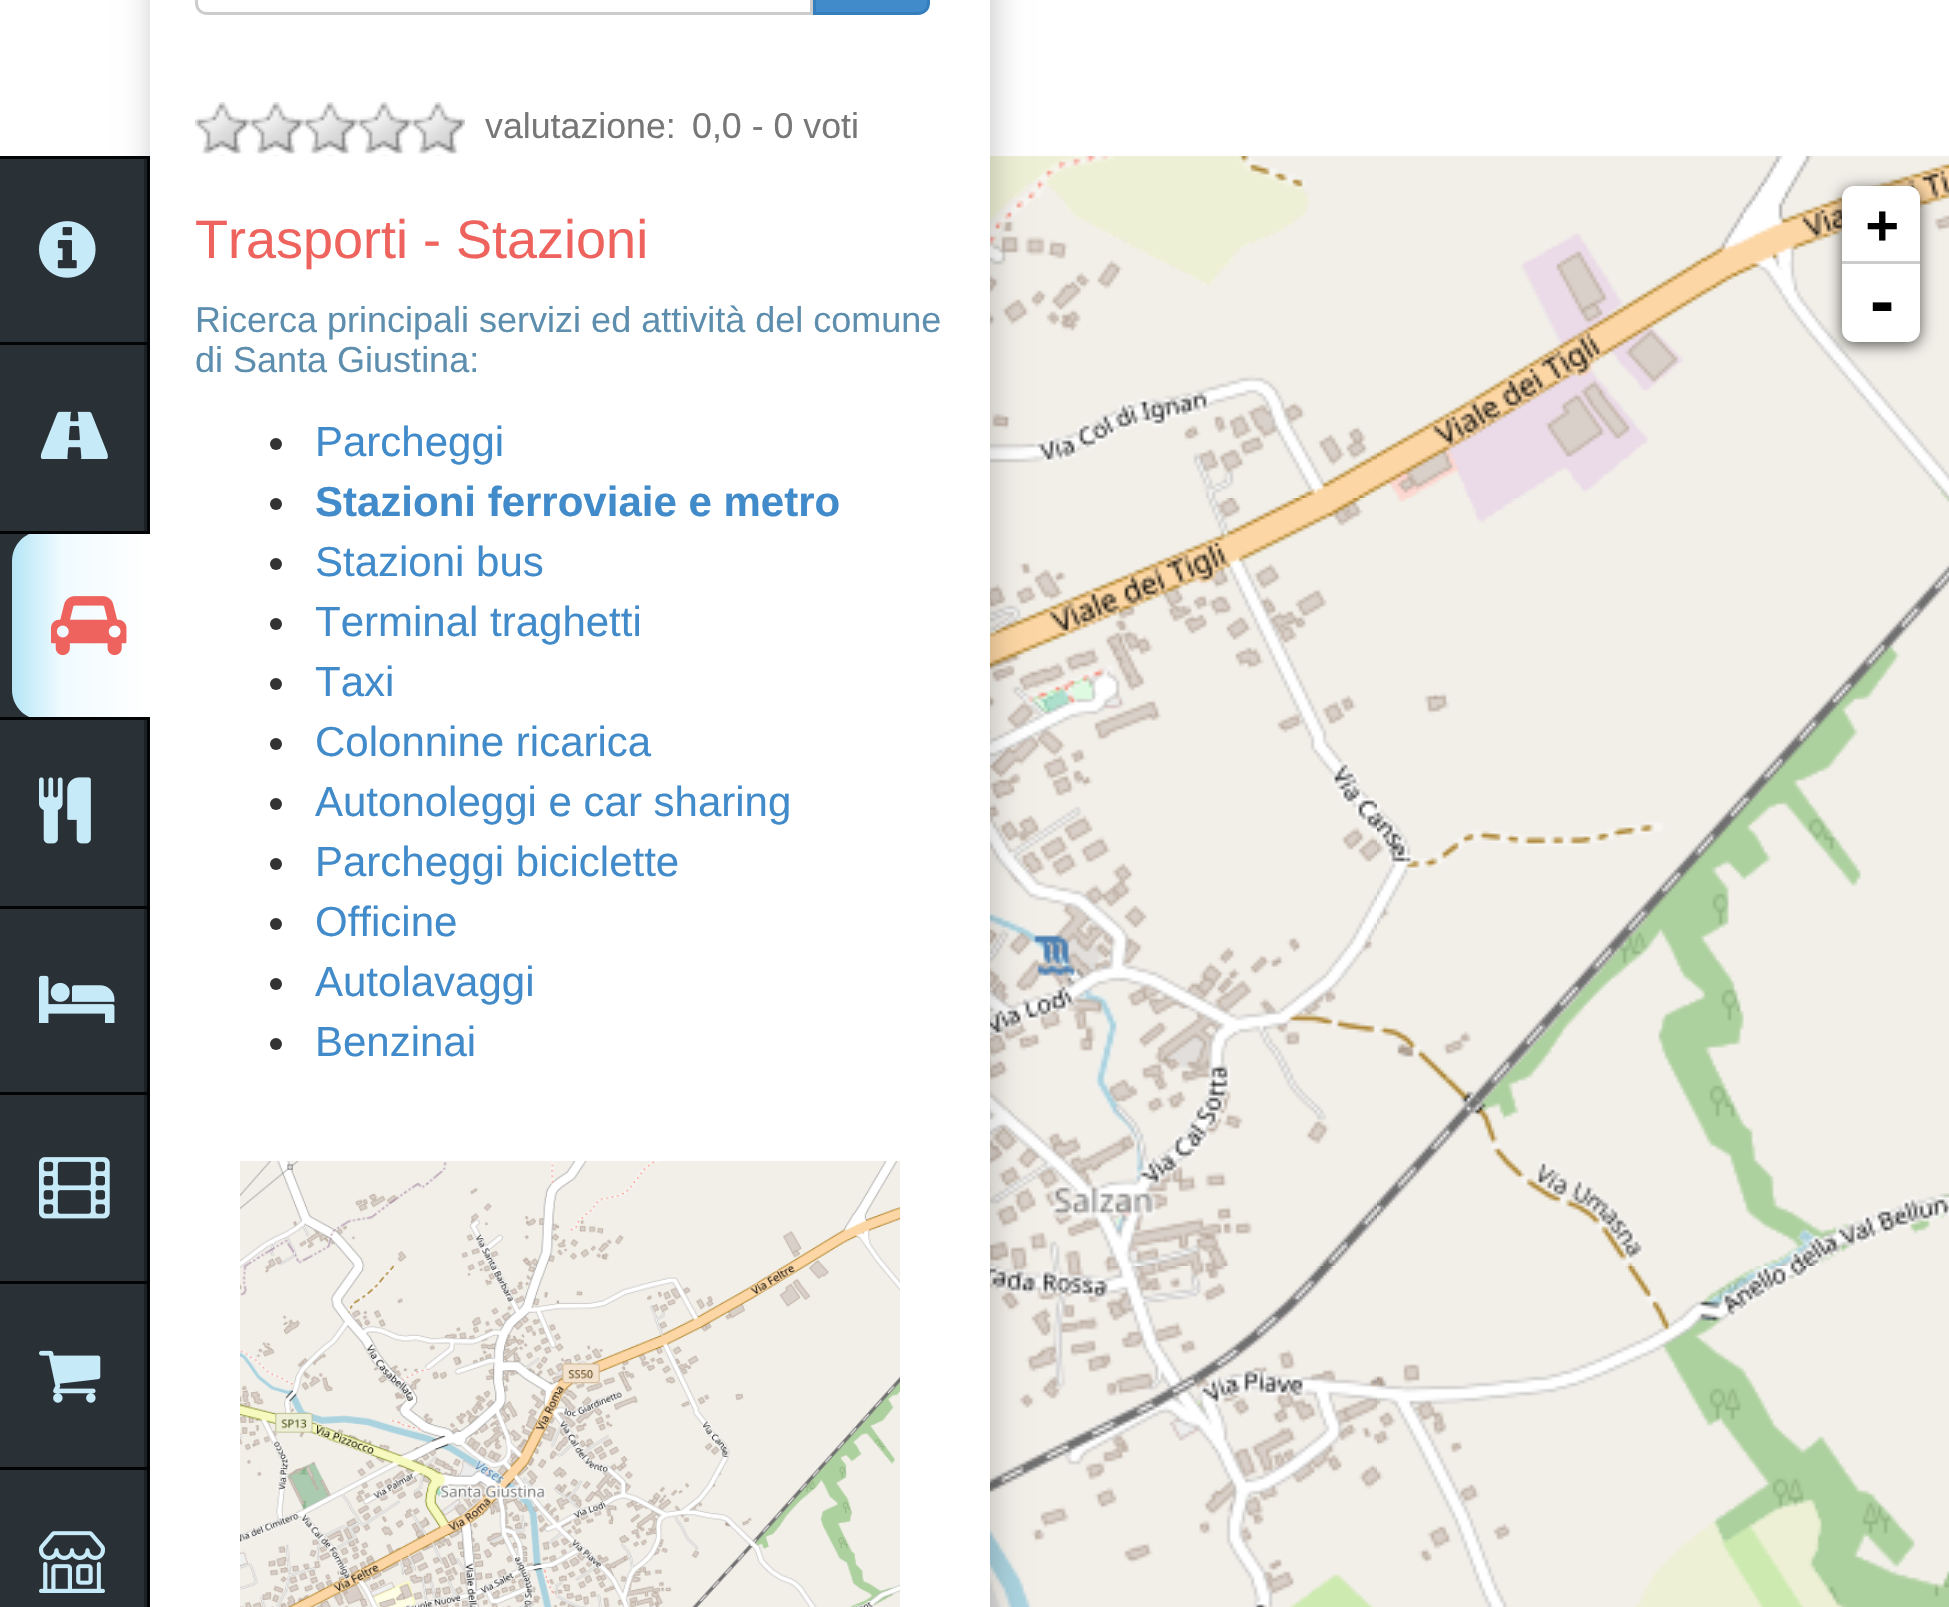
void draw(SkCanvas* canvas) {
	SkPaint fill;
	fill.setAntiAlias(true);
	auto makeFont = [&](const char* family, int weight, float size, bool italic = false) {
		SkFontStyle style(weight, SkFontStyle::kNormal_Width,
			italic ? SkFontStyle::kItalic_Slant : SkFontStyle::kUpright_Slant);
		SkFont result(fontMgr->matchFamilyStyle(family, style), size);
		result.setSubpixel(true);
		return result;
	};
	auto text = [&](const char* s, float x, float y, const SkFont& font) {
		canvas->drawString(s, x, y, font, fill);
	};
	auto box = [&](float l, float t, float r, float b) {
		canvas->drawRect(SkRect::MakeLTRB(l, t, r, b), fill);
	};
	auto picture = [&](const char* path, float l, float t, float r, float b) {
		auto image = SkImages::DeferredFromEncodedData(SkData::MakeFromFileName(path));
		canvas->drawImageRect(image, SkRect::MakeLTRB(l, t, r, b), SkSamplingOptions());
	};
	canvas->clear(0xFFFFFFFF);
	picture("image10.png", 990, 156, 1377, 498);
	picture("image12.png", 990, 498, 1377, 1266);
	picture("image14.png", 990, 1266, 1377, 1607);
	fill.setColor(0x38000000);
	fill.setMaskFilter(SkMaskFilter::MakeBlur(kNormal_SkBlurStyle, 15));
	canvas->drawRect(SkRect::MakeLTRB(153, -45, 993, 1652), fill);
	fill.setMaskFilter(nullptr);
	fill.setColor(0xFF293137);
	box(0, 159, 144, 1607);
	fill.setColor(0xFF1C2125);
	box(144, 156, 147, 1607);
	fill.setColor(0xFF030405);
	box(147, 156, 150, 1607);
	box(0, 156, 147, 159);
	box(0, 342, 147, 345);
	picture("image0.png", 39, 221, 96, 278);
	box(0, 531, 27, 534);
	picture("image1.png", 40, 411, 108, 459);
	{
		const SkColor colors[] = {0xFFB5E5F6, 0xFFF0FBFF, 0xFFFFFFFF};
		const float stops[] = {0, 0.36f, 1};
		const SkPoint ends[] = {{12, 626}, {150, 626}};
		fill.setShader(SkGradientShader::MakeLinear(ends, colors, stops, 3, SkTileMode::kClamp));
		fill.setAlpha(255);
	}
	canvas->drawPath(SkPathBuilder().moveTo(42, 531).lineTo(150, 531).lineTo(150, 720).lineTo(42, 720).cubicTo(25.5f, 720, 12, 706.5f, 12, 690).lineTo(12, 561).cubicTo(12, 544.5f, 25.5f, 531, 42, 531).close().detach(), fill);
	fill.setShader(nullptr);
	fill.setColor(0xFF030405);
	box(27, 531, 150, 534);
	box(0, 717, 150, 720);
	picture("image2.png", 51, 596, 127, 656);
	box(0, 906, 147, 909);
	picture("image3.png", 39, 777, 91, 844);
	box(0, 1092, 147, 1095);
	picture("image4.png", 39, 975, 115, 1023);
	box(0, 1281, 147, 1284);
	picture("image5.png", 39, 1157, 110, 1219);
	box(0, 1467, 147, 1470);
	picture("image6.png", 39, 1350, 101, 1403);
	picture("image7.png", 39, 1531, 105, 1593);
	fill.setColor(0xFFFFFFFF);
	box(150, 0, 990, 1607);
	fill.setStyle(SkPaint::kStroke_Style);
	fill.setStrokeWidth(3);
	fill.setColor(0xFFCCCCCC);
	canvas->drawPath(SkPathBuilder().moveTo(207, -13.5f).lineTo(811.5f, -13.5f).lineTo(811.5f, 13.5f).lineTo(207, 13.5f).cubicTo(201, 13.5f, 196.5f, 9, 196.5f, 3).lineTo(196.5f, -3).cubicTo(196.5f, -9, 201, -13.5f, 207, -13.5f).close().detach(), fill);
	fill.setStyle(SkPaint::kFill_Style);
	fill.setColor(0xFF428BCA);
	canvas->drawPath(SkPathBuilder().moveTo(814.5f, -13.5f).lineTo(918, -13.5f).cubicTo(924, -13.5f, 928.5f, -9, 928.5f, -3).lineTo(928.5f, 3).cubicTo(928.5f, 9, 924, 13.5f, 918, 13.5f).lineTo(814.5f, 13.5f).close().detach(), fill);
	fill.setStyle(SkPaint::kStroke_Style);
	fill.setColor(0xFF357EBD);
	canvas->drawPath(SkPathBuilder().moveTo(814.5f, -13.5f).lineTo(918, -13.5f).cubicTo(924, -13.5f, 928.5f, -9, 928.5f, -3).lineTo(928.5f, 3).cubicTo(928.5f, 9, 924, 13.5f, 918, 13.5f).lineTo(814.5f, 13.5f).close().detach(), fill);
	picture("image8.png", 195, 102, 465, 156);
	fill.setStyle(SkPaint::kFill_Style);
	fill.setColor(0xFF333333);
	canvas->drawCircle(276, 444, 6, fill);
	canvas->drawCircle(276, 504, 6, fill);
	canvas->drawCircle(276, 564, 6, fill);
	canvas->drawCircle(276, 624, 6, fill);
	canvas->drawCircle(276, 684, 6, fill);
	canvas->drawCircle(276, 744, 6, fill);
	canvas->drawCircle(276, 804, 6, fill);
	canvas->drawCircle(276, 864, 6, fill);
	canvas->drawCircle(276, 924, 6, fill);
	canvas->drawCircle(276, 984, 6, fill);
	canvas->drawCircle(276, 1044, 6, fill);
	picture("image9.png", 240, 1161, 900, 1607);
	picture("image11.png", 1377, 156, 1949, 498);
	picture("image13.png", 1377, 498, 1949, 1266);
	picture("image15.png", 1377, 1266, 1949, 1607);
	fill.setColor(0xA6000000);
	fill.setMaskFilter(SkMaskFilter::MakeBlur(kNormal_SkBlurStyle, 7.5f));
	canvas->drawRoundRect(SkRect::MakeLTRB(1842, 189, 1920, 345), 12, 12, fill);
	fill.setMaskFilter(nullptr);
	fill.setColor(0xFFFFFFFF);
	canvas->drawPath(SkPathBuilder().moveTo(1854, 186).lineTo(1908, 186).cubicTo(1914.5f, 186, 1920, 191.5f, 1920, 198).lineTo(1920, 264).lineTo(1842, 264).lineTo(1842, 198).cubicTo(1842, 191.5f, 1847.5f, 186, 1854, 186).close().detach(), fill);
	fill.setColor(0xFFCCCCCC);
	box(1842, 261, 1920, 264);
	fill.setColor(0xFFFFFFFF);
	canvas->drawPath(SkPathBuilder().moveTo(1842, 264).lineTo(1920, 264).lineTo(1920, 330).cubicTo(1920, 336.5f, 1914.5f, 342, 1908, 342).lineTo(1854, 342).cubicTo(1847.5f, 342, 1842, 336.5f, 1842, 330).close().detach(), fill);
	auto font1 = makeFont("Liberation Sans", 400, 35.75f);
	fill.setColor(0xFF777777);
	text("valutazione:", 485, 138, font1);
	text("0,0 - 0 voti", 692, 138, font1);
	auto font2 = makeFont("Liberation Sans", 400, 54);
	fill.setColor(0xFFEE635D);
	text("Trasporti - Stazioni", 195, 258, font2);
	auto font3 = makeFont("Liberation Sans", 400, 36);
	fill.setColor(0xFF5D8EAE);
	text("Ricerca principali servizi ed attività del comune", 195, 332, font3);
	text("di Santa Giustina:", 195, 372, font3);
	auto font4 = makeFont("Liberation Sans", 400, 42);
	fill.setColor(0xFF428BCA);
	text("Parcheggi", 315, 456, font4);
	auto font5 = makeFont("Liberation Sans", 700, 42);
	text("Stazioni ferroviaie e metro", 315, 516, font5);
	text("Stazioni bus", 315, 576, font4);
	text("Terminal traghetti", 315, 636, font4);
	text("Taxi", 315, 696, font4);
	text("Colonnine ricarica", 315, 756, font4);
	text("Autonoleggi e car sharing", 315, 816, font4);
	text("Parcheggi biciclette", 315, 876, font4);
	text("Officine", 315, 936, font4);
	text("Autolavaggi", 315, 996, font4);
	text("Benzinai", 315, 1056, font4);
	auto font6 = makeFont("DejaVu Sans Mono", 700, 54);
	fill.setColor(0xFF000000);
	text("+", 1866, 243, font6);
	auto font7 = makeFont("DejaVu Sans Mono", 700, 60);
	text("-", 1864, 324, font7);
}
